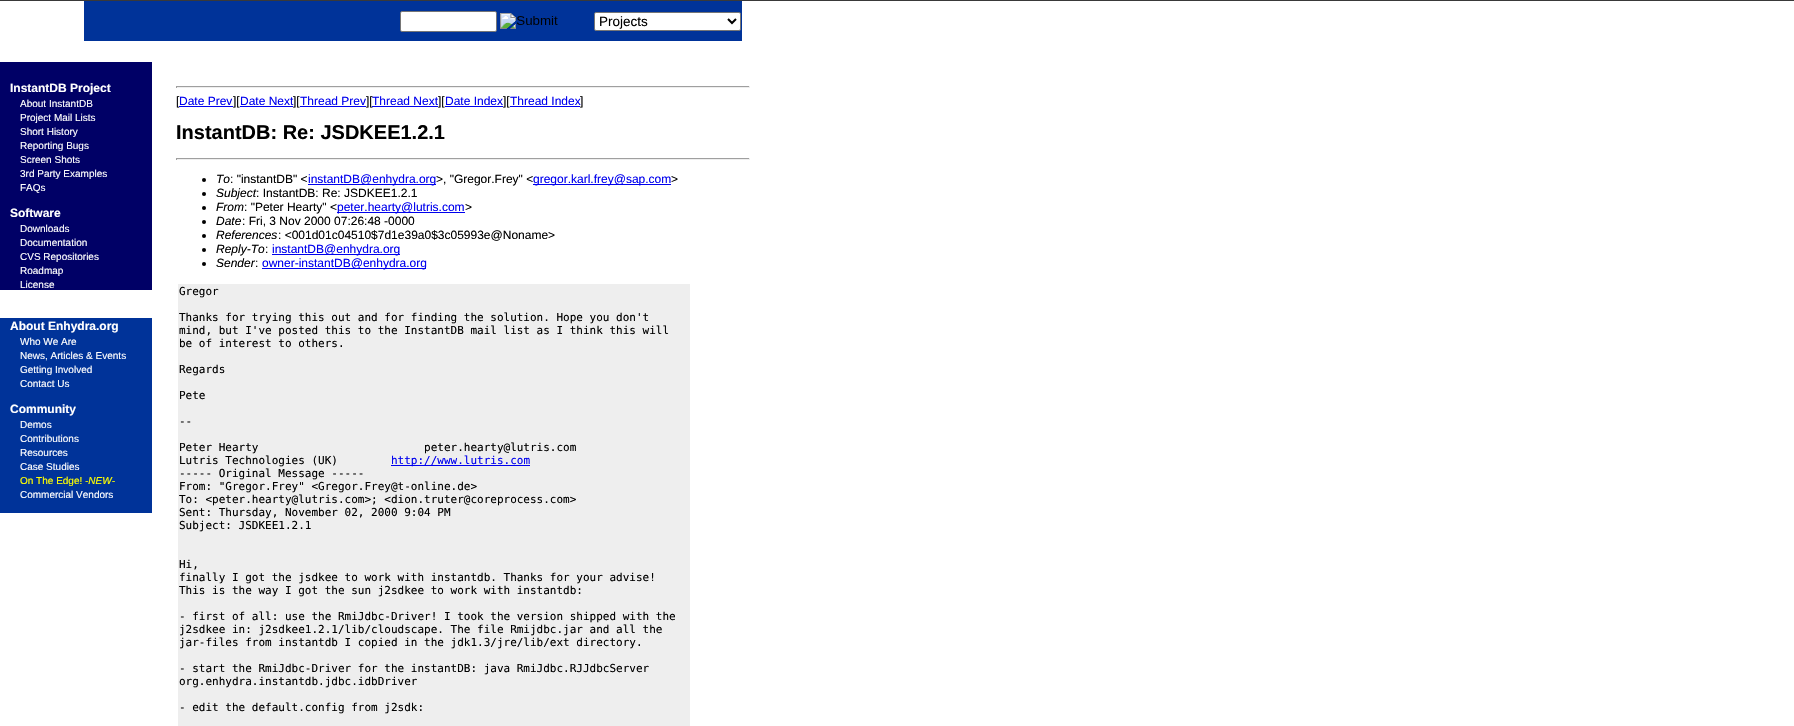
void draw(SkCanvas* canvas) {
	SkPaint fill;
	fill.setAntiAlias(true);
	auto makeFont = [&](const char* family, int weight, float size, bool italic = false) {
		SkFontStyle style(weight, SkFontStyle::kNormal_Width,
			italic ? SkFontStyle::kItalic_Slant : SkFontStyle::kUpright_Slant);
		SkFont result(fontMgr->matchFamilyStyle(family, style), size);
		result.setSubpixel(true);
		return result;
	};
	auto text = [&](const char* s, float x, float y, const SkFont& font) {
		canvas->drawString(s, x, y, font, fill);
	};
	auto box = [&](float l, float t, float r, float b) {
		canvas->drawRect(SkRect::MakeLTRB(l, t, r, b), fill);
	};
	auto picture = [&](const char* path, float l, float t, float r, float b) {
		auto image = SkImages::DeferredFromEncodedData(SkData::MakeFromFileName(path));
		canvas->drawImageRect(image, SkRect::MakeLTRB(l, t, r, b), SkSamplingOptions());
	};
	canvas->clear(0xFFFFFFFF);
	fill.setColor(0xFF393939);
	box(0, 0, 1794, 1);
	fill.setColor(0xFF003399);
	box(84, 1, 742, 41);
	fill.setColor(0xFFFFFFFF);
	canvas->drawRoundRect(SkRect::MakeLTRB(400.5f, 11.5f, 496.5f, 31.5f), 1.5f, 1.5f, fill);
	fill.setStyle(SkPaint::kStroke_Style);
	fill.setStrokeWidth(1);
	fill.setColor(0xFF767676);
	canvas->drawRoundRect(SkRect::MakeLTRB(400.5f, 11.5f, 496.5f, 31.5f), 1.5f, 1.5f, fill);
	picture("image0.png", 500, 13, 558, 29);
	fill.setStyle(SkPaint::kFill_Style);
	fill.setColor(0xFFFFFFFF);
	canvas->drawRoundRect(SkRect::MakeLTRB(594.5f, 12.5f, 740.5f, 30.5f), 1.5f, 1.5f, fill);
	fill.setStyle(SkPaint::kStroke_Style);
	fill.setColor(0xFF767676);
	canvas->drawRoundRect(SkRect::MakeLTRB(594.5f, 12.5f, 740.5f, 30.5f), 1.5f, 1.5f, fill);
	fill.setStrokeWidth(2);
	fill.setColor(0xFF000000);
	canvas->drawPath(SkPathBuilder().moveTo(728, 19).lineTo(732, 23).lineTo(736, 19).detach(), fill);
	fill.setStyle(SkPaint::kFill_Style);
	fill.setColor(0xFF000066);
	box(0, 62, 152, 80);
	box(0, 80, 152, 290);
	fill.setColor(0xFF003399);
	box(0, 318, 152, 513);
	fill.setColor(0xFF9F9F9F);
	box(176, 86, 750, 87);
	fill.setColor(0xFFEEEEEE);
	box(749, 86, 750, 88);
	box(176, 87, 750, 88);
	fill.setColor(0xFF9F9F9F);
	box(176, 86, 177, 88);
	fill.setColor(0xFF0000EE);
	box(240, 106, 293, 107);
	box(300, 106, 366, 107);
	box(445, 106, 503, 107);
	box(510, 106, 580, 107);
	fill.setColor(0xFF9F9F9F);
	box(176, 158, 750, 159);
	fill.setColor(0xFFEEEEEE);
	box(749, 158, 750, 160);
	box(176, 159, 750, 160);
	fill.setColor(0xFF9F9F9F);
	box(176, 158, 177, 160);
	fill.setColor(0xFF000000);
	canvas->drawCircle(204, 180, 2, fill);
	fill.setColor(0xFF0000EE);
	box(308, 184, 436, 185);
	box(533, 184, 671, 185);
	fill.setColor(0xFF000000);
	canvas->drawCircle(204, 194, 2, fill);
	canvas->drawCircle(204, 208, 2, fill);
	fill.setColor(0xFF0000EE);
	box(337, 212, 465, 213);
	fill.setColor(0xFF000000);
	canvas->drawCircle(204, 222, 2, fill);
	canvas->drawCircle(204, 236, 2, fill);
	canvas->drawCircle(204, 250, 2, fill);
	fill.setColor(0xFF0000EE);
	box(272, 254, 400, 255);
	fill.setColor(0xFF000000);
	canvas->drawCircle(204, 264, 2, fill);
	fill.setColor(0xFF0000EE);
	box(262, 268, 426, 269);
	fill.setColor(0xFFEEEEEE);
	box(178, 284, 690, 726);
	fill.setColor(0xFF0000EE);
	box(391, 465, 530, 466);
	auto font1 = makeFont("Liberation Sans", 400, 13.5f);
	fill.setColor(0xFF000000);
	text("Projects", 599, 26, font1);
	auto font2 = makeFont("Liberation Sans", 700, 12);
	fill.setColor(0xFFFFFFFF);
	text("InstantDB Project", 10, 92, font2);
	auto font3 = makeFont("Liberation Sans", 400, 10);
	text("About InstantDB", 20, 107, font3);
	text("Project Mail Lists", 20, 121, font3);
	text("Short History", 20, 135, font3);
	text("Reporting Bugs", 20, 149, font3);
	text("Screen Shots", 20, 163, font3);
	text("3rd Party Examples", 20, 177, font3);
	text("FAQs", 20, 191, font3);
	text("Software", 10, 217, font2);
	text("Downloads", 20, 232, font3);
	text("Documentation", 20, 246, font3);
	text("CVS Repositories", 20, 260, font3);
	text("Roadmap", 20, 274, font3);
	text("License", 20, 288, font3);
	text("About Enhydra.org", 10, 330, font2);
	text("Who We Are", 20, 345, font3);
	text("News, Articles & Events", 20, 359, font3);
	text("Getting Involved", 20, 373, font3);
	text("Contact Us", 20, 387, font3);
	text("Community", 10, 413, font2);
	text("Demos", 20, 428, font3);
	text("Contributions", 20, 442, font3);
	text("Resources", 20, 456, font3);
	text("Case Studies", 20, 470, font3);
	fill.setColor(0xFFFFFF00);
	text("On The Edge!", 20, 484, font3);
	auto font4 = makeFont("Liberation Sans", 400, 10, true);
	text("-NEW-", 85, 484, font4);
	fill.setColor(0xFFFFFFFF);
	text("Commercial Vendors", 20, 498, font3);
	auto font5 = makeFont("Liberation Sans", 400, 12);
	fill.setColor(0xFF000000);
	text("[", 176, 105, font5);
	fill.setColor(0xFF0000EE);
	text("Date Prev", 179, 105, font5);
	box(179, 106, 233, 107);
	fill.setColor(0xFF000000);
	text("][", 233, 105, font5);
	fill.setColor(0xFF0000EE);
	text("Date Next", 240, 105, font5);
	fill.setColor(0xFF000000);
	text("][", 293, 105, font5);
	fill.setColor(0xFF0000EE);
	text("Thread Prev", 300, 105, font5);
	fill.setColor(0xFF000000);
	text("][", 366, 105, font5);
	fill.setColor(0xFF0000EE);
	text("Thread Next", 372, 105, font5);
	box(372, 106, 438, 107);
	fill.setColor(0xFF000000);
	text("][", 438, 105, font5);
	fill.setColor(0xFF0000EE);
	text("Date Index", 445, 105, font5);
	fill.setColor(0xFF000000);
	text("][", 503, 105, font5);
	fill.setColor(0xFF0000EE);
	text("Thread Index", 510, 105, font5);
	fill.setColor(0xFF000000);
	text("]", 580, 105, font5);
	auto font6 = makeFont("Liberation Sans", 700, 20);
	text("InstantDB: Re: JSDKEE1.2.1", 176, 139, font6);
	auto font7 = makeFont("Liberation Sans", 400, 12, true);
	text("To", 216, 183, font7);
	text(": \"instantDB\" <", 230, 183, font5);
	fill.setColor(0xFF0000EE);
	text("instantDB@enhydra.org", 308, 183, font5);
	fill.setColor(0xFF000000);
	text(">, \"Gregor.Frey\" <", 436, 183, font5);
	fill.setColor(0xFF0000EE);
	text("gregor.karl.frey@sap.com", 533, 183, font5);
	fill.setColor(0xFF000000);
	text(">", 671, 183, font5);
	text("Subject", 216, 197, font7);
	text(": InstantDB: Re: JSDKEE1.2.1", 256, 197, font5);
	text("From", 216, 211, font7);
	text(": \"Peter Hearty\" <", 244, 211, font5);
	fill.setColor(0xFF0000EE);
	text("peter.hearty@lutris.com", 337, 211, font5);
	fill.setColor(0xFF000000);
	text(">", 465, 211, font5);
	text("Date", 216, 225, font7);
	text(": Fri, 3 Nov 2000 07:26:48 -0000", 242, 225, font5);
	text("References", 216, 239, font7);
	text(": <001d01c04510$7d1e39a0$3c05993e@Noname>", 278, 239, font5);
	text("Reply-To", 216, 253, font7);
	text(":", 265, 253, font5);
	fill.setColor(0xFF0000EE);
	text("instantDB@enhydra.org", 272, 253, font5);
	fill.setColor(0xFF000000);
	text("Sender", 216, 267, font7);
	text(":", 255, 267, font5);
	fill.setColor(0xFF0000EE);
	text("owner-instantDB@enhydra.org", 262, 267, font5);
	auto font8 = makeFont("DejaVu Sans Mono", 400, 11);
	fill.setColor(0xFF000000);
	text("Gregor", 179, 295, font8);
	text("Thanks for trying this out and for finding the solution. Hope you don't", 179, 321, font8);
	text("mind, but I've posted this to the InstantDB mail list as I think this will", 179, 334, font8);
	text("be of interest to others.", 179, 347, font8);
	text("Regards", 179, 373, font8);
	text("Pete", 179, 399, font8);
	text("--", 179, 425, font8);
	text("Peter Hearty                         peter.hearty@lutris.com", 179, 451, font8);
	text("Lutris Technologies (UK)", 179, 464, font8);
	fill.setColor(0xFF0000EE);
	text("http://www.lutris.com", 391, 464, font8);
	fill.setColor(0xFF000000);
	text("----- Original Message -----", 179, 477, font8);
	text("From: \"Gregor.Frey\" <Gregor.Frey@t-online.de>", 179, 490, font8);
	text("To: <peter.hearty@lutris.com>; <dion.truter@coreprocess.com>", 179, 503, font8);
	text("Sent: Thursday, November 02, 2000 9:04 PM", 179, 516, font8);
	text("Subject: JSDKEE1.2.1", 179, 529, font8);
	text("Hi,", 179, 568, font8);
	text("finally I got the jsdkee to work with instantdb. Thanks for your advise!", 179, 581, font8);
	text("This is the way I got the sun j2sdkee to work with instantdb:", 179, 594, font8);
	text("- first of all: use the RmiJdbc-Driver! I took the version shipped with the", 179, 620, font8);
	text("j2sdkee in: j2sdkee1.2.1/lib/cloudscape. The file Rmijdbc.jar and all the", 179, 633, font8);
	text("jar-files from instantdb I copied in the jdk1.3/jre/lib/ext directory.", 179, 646, font8);
	text("- start the RmiJdbc-Driver for the instantDB: java RmiJdbc.RJJdbcServer", 179, 672, font8);
	text("org.enhydra.instantdb.jdbc.idbDriver", 179, 685, font8);
	text("- edit the default.config from j2sdk:", 179, 711, font8);
}
